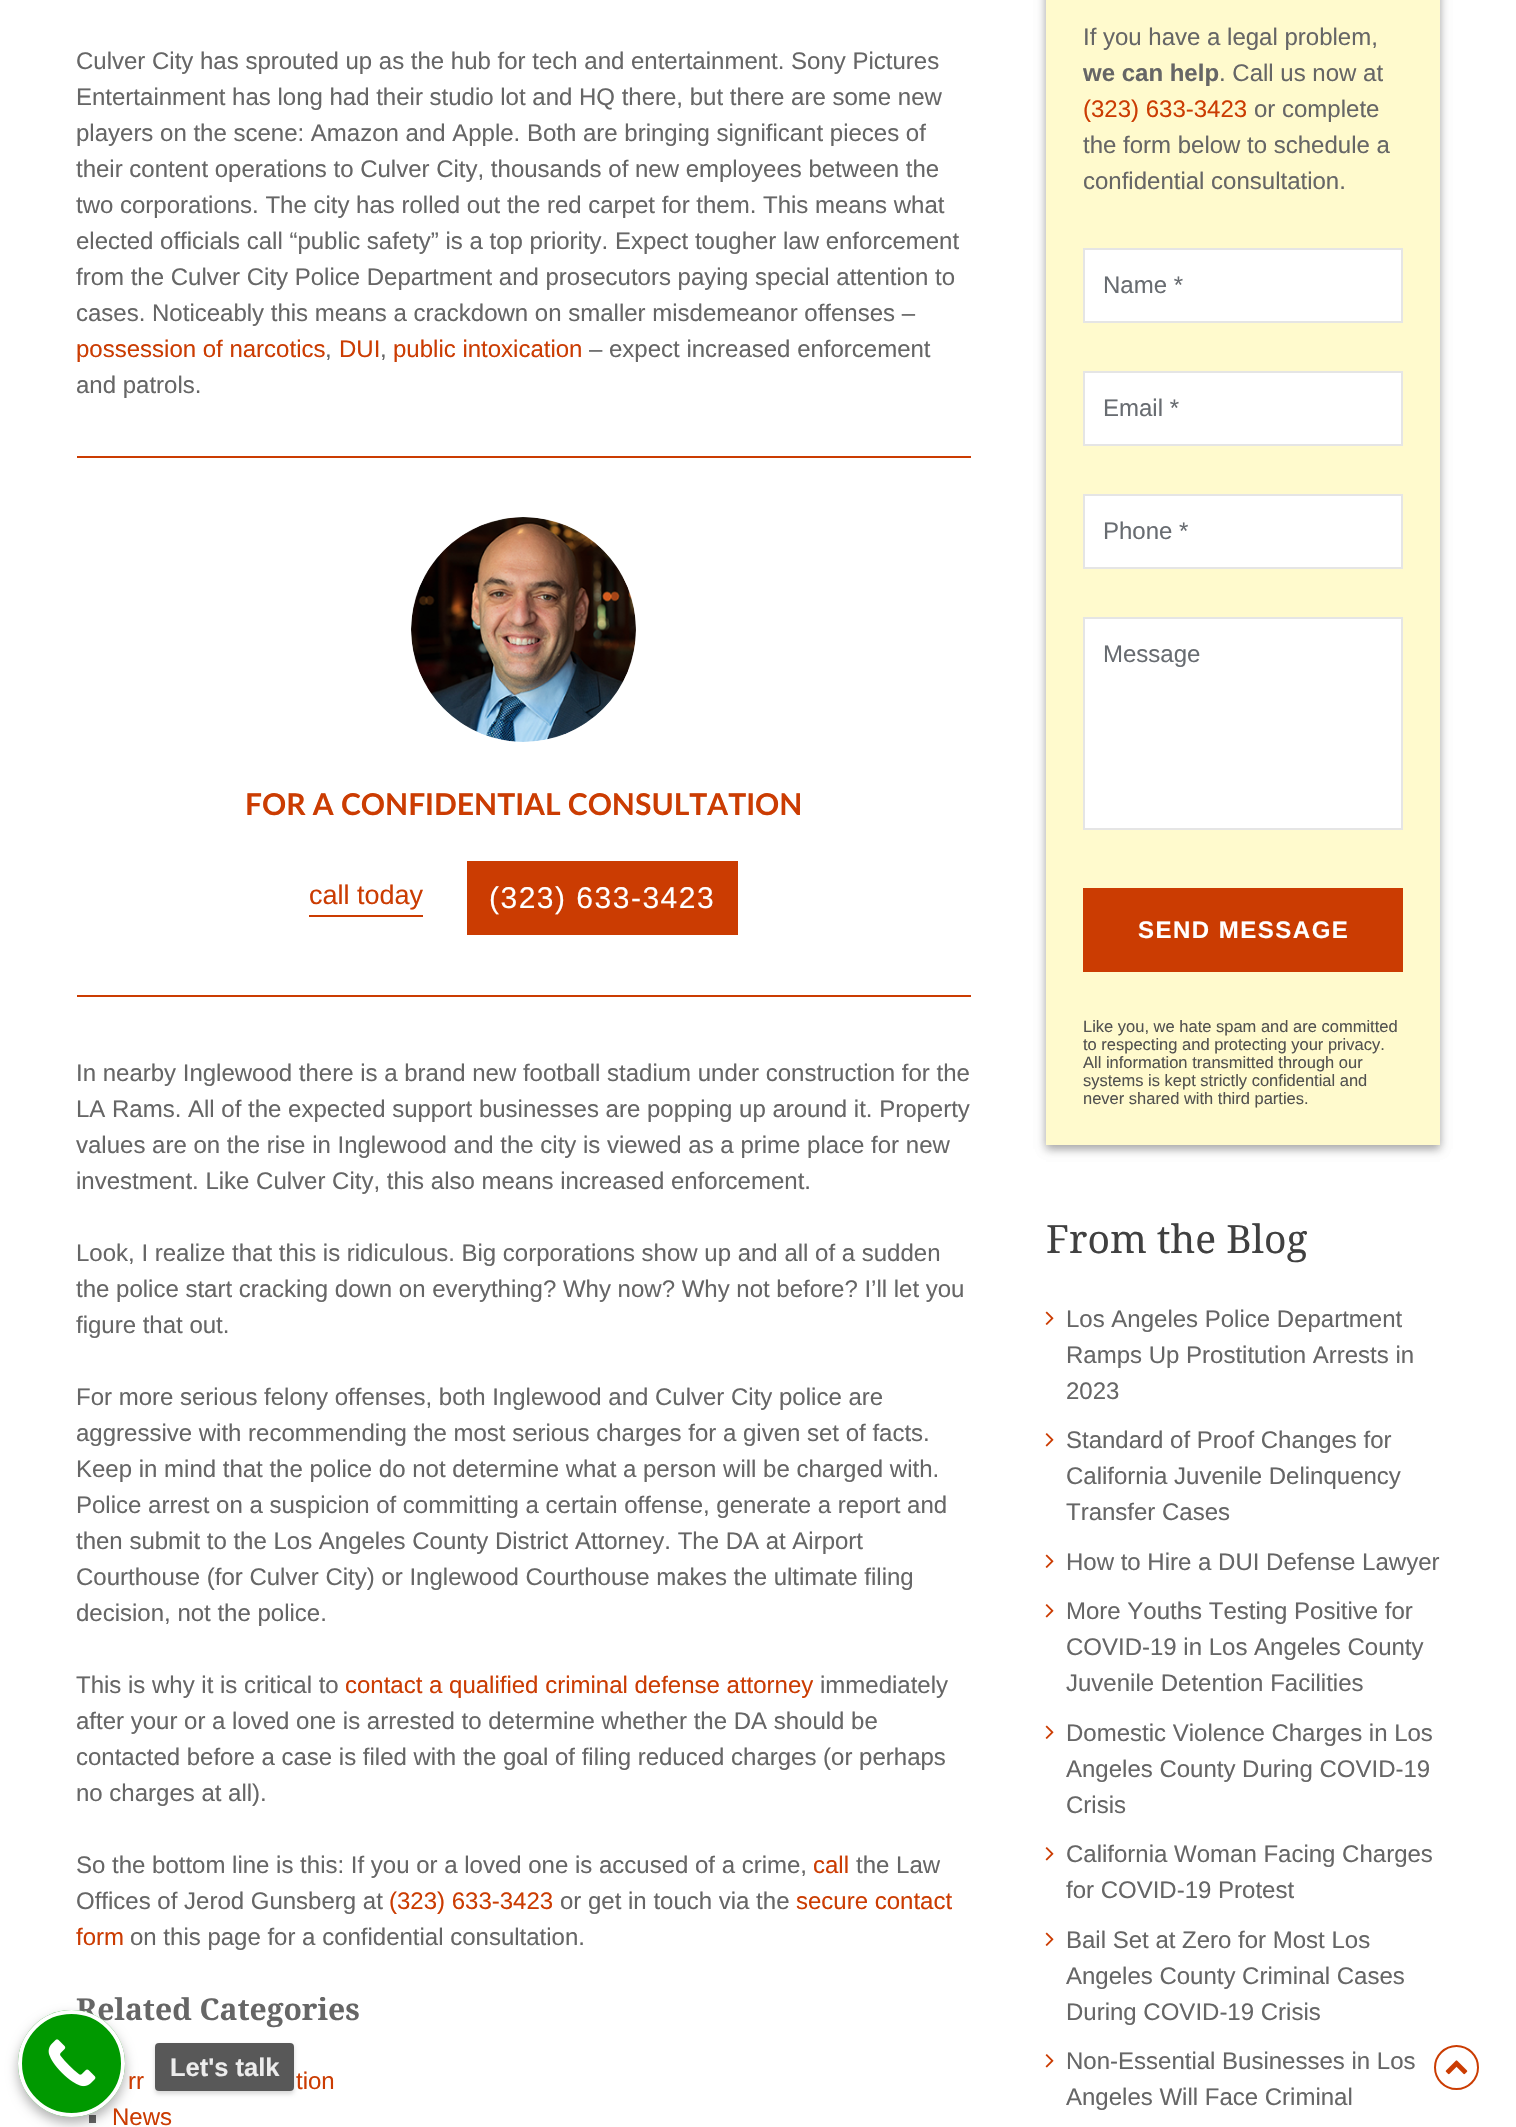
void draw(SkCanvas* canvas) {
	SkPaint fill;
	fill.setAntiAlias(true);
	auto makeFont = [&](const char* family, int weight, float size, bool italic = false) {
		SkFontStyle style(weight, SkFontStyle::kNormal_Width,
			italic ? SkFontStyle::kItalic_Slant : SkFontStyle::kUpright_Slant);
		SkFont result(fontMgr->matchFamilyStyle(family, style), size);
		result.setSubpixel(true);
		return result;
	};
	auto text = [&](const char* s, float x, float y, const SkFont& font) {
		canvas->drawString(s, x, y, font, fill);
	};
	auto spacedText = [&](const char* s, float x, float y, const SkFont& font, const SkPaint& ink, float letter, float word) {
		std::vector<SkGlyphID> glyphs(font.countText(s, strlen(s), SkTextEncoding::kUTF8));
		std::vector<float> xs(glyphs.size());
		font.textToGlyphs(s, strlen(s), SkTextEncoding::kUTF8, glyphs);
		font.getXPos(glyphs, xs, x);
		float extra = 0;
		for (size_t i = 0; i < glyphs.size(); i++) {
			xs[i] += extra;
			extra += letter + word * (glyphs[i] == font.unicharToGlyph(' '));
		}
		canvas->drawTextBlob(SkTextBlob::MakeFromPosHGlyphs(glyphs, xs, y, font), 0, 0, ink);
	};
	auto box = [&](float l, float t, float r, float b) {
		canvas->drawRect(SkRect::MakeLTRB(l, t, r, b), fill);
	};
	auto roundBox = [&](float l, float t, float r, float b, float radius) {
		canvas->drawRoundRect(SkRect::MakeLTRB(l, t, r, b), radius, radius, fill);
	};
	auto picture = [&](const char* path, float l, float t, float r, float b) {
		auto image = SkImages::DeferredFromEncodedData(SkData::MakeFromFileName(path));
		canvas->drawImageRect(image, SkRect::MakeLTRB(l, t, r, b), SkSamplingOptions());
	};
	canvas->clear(0xFFFFFFFF);
	fill.setColor(0xFFCB3C02);
	box(77, 456, 971, 458);
	box(77, 995, 971, 997);
	picture("image0.png", 411, 517, 636, 742);
	box(309, 915, 423, 917);
	box(467, 861, 738, 935);
	fill.setColor(0xFF666666);
	box(89, 2115, 96, 2123);
	fill.setColor(0x3B000000);
	fill.setMaskFilter(SkMaskFilter::MakeBlur(kNormal_SkBlurStyle, 4.5f));
	canvas->drawRect(SkRect::MakeLTRB(1046, -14, 1440, 1149), fill);
	fill.setMaskFilter(nullptr);
	fill.setColor(0x29000000);
	fill.setMaskFilter(SkMaskFilter::MakeBlur(kNormal_SkBlurStyle, 4.5f));
	canvas->drawRect(SkRect::MakeLTRB(1046, -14, 1440, 1149), fill);
	fill.setMaskFilter(nullptr);
	fill.setColor(0xFFFFFACD);
	box(1046, 0, 1440, 1145);
	fill.setColor(0xFFFFFFFF);
	canvas->drawRect(SkRect::MakeLTRB(1084, 249, 1402, 322), fill);
	fill.setStyle(SkPaint::kStroke_Style);
	fill.setStrokeWidth(2);
	fill.setColor(0xFFE5E5E5);
	canvas->drawRect(SkRect::MakeLTRB(1084, 249, 1402, 322), fill);
	fill.setStyle(SkPaint::kFill_Style);
	fill.setColor(0xFFFFFFFF);
	canvas->drawRect(SkRect::MakeLTRB(1084, 372, 1402, 445), fill);
	fill.setStyle(SkPaint::kStroke_Style);
	fill.setColor(0xFFE5E5E5);
	canvas->drawRect(SkRect::MakeLTRB(1084, 372, 1402, 445), fill);
	fill.setStyle(SkPaint::kFill_Style);
	fill.setColor(0xFFFFFFFF);
	canvas->drawRect(SkRect::MakeLTRB(1084, 495, 1402, 568), fill);
	fill.setStyle(SkPaint::kStroke_Style);
	fill.setColor(0xFFE5E5E5);
	canvas->drawRect(SkRect::MakeLTRB(1084, 495, 1402, 568), fill);
	fill.setStyle(SkPaint::kFill_Style);
	fill.setColor(0xFFFFFFFF);
	canvas->drawRect(SkRect::MakeLTRB(1084, 618, 1402, 829), fill);
	fill.setStyle(SkPaint::kStroke_Style);
	fill.setColor(0xFFE5E5E5);
	canvas->drawRect(SkRect::MakeLTRB(1084, 618, 1402, 829), fill);
	fill.setStyle(SkPaint::kFill_Style);
	fill.setColor(0xFFCB3C02);
	box(1083, 888, 1403, 972);
	picture("image1.png", 1045, 1311, 1054, 1325);
	picture("image2.png", 1045, 1433, 1054, 1447);
	picture("image1.png", 1045, 1554, 1054, 1568);
	picture("image2.png", 1045, 1604, 1054, 1618);
	picture("image1.png", 1045, 1725, 1054, 1739);
	picture("image2.png", 1045, 1847, 1054, 1861);
	picture("image1.png", 1045, 1932, 1054, 1946);
	picture("image2.png", 1045, 2054, 1054, 2068);
	fill.setStyle(SkPaint::kStroke_Style);
	canvas->drawCircle(1456.5f, 2067.5f, 21.5f, fill);
	picture("image3.png", 1445, 2060, 1468, 2075);
	fill.setStyle(SkPaint::kFill_Style);
	fill.setColor(0x4D000000);
	fill.setMaskFilter(SkMaskFilter::MakeBlur(kNormal_SkBlurStyle, 6));
	canvas->drawRoundRect(SkRect::MakeLTRB(18, 2016, 125, 2123), 53.5f, 53.5f, fill);
	fill.setMaskFilter(nullptr);
	canvas->save();
	canvas->clipPath(SkPathBuilder(SkPathFillType::kEvenOdd).moveTo(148, 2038).lineTo(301, 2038).lineTo(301, 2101).lineTo(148, 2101).close().moveTo(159, 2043).lineTo(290, 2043).cubicTo(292, 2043, 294, 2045, 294, 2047).lineTo(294, 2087).cubicTo(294, 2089, 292, 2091, 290, 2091).lineTo(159, 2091).cubicTo(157, 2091, 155, 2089, 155, 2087).lineTo(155, 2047).cubicTo(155, 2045, 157, 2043, 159, 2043).close().detach(), true);
	fill.setColor(0x26000000);
	fill.setMaskFilter(SkMaskFilter::MakeBlur(kNormal_SkBlurStyle, 2));
	canvas->drawRoundRect(SkRect::MakeLTRB(155, 2045, 294, 2094), 4, 4, fill);
	fill.setMaskFilter(nullptr);
	canvas->restore();
	fill.setColor(0xE6464646);
	roundBox(155, 2043, 294, 2091, 4);
	auto font1 = makeFont("Liberation Sans", 400, 24);
	fill.setColor(0xFF666666);
	text("Culver City has sprouted up as the hub for tech and entertainment. Sony Pictures", 76, 69, font1);
	text("Entertainment has long had their studio lot and HQ there, but there are some new", 76, 105, font1);
	text("players on the scene: Amazon and Apple. Both are bringing significant pieces of", 76, 141, font1);
	text("their content operations to Culver City, thousands of new employees between the", 76, 177, font1);
	text("two corporations. The city has rolled out the red carpet for them. This means what", 76, 213, font1);
	text("elected officials call “public safety” is a top priority. Expect tougher law enforcement", 76, 249, font1);
	text("from the Culver City Police Department and prosecutors paying special attention to", 76, 285, font1);
	text("cases. Noticeably this means a crackdown on smaller misdemeanor offenses –", 76, 321, font1);
	fill.setColor(0xFFCB3C02);
	text("possession of narcotics", 76, 357, font1);
	fill.setColor(0xFF666666);
	text(",", 325, 357, font1);
	fill.setColor(0xFFCB3C02);
	text("DUI", 339, 357, font1);
	fill.setColor(0xFF666666);
	text(",", 380, 357, font1);
	fill.setColor(0xFFCB3C02);
	text("public intoxication", 393, 357, font1);
	fill.setColor(0xFF666666);
	text("– expect increased enforcement", 589, 357, font1);
	text("and patrols.", 76, 393, font1);
	auto font2 = makeFont("Lato", 700, 30);
	fill.setColor(0xFFCB3C02);
	text("FOR A CONFIDENTIAL CONSULTATION", 245, 815, font2);
	auto font3 = makeFont("Liberation Sans", 400, 27);
	text("call today", 309, 904, font3);
	auto font4 = makeFont("Liberation Sans", 400, 30);
	fill.setColor(0xFFFFFFFF);
	spacedText("(323) 633-3423", 489, 908, font4, fill, 1.5f, 0);
	fill.setColor(0xFF666666);
	text("In nearby Inglewood there is a brand new football stadium under construction for the", 76, 1081, font1);
	text("LA Rams. All of the expected support businesses are popping up around it. Property", 76, 1117, font1);
	text("values are on the rise in Inglewood and the city is viewed as a prime place for new", 76, 1153, font1);
	text("investment. Like Culver City, this also means increased enforcement.", 76, 1189, font1);
	text("Look, I realize that this is ridiculous. Big corporations show up and all of a sudden", 76, 1261, font1);
	text("the police start cracking down on everything? Why now? Why not before? I’ll let you", 76, 1297, font1);
	text("figure that out.", 76, 1333, font1);
	text("For more serious felony offenses, both Inglewood and Culver City police are", 76, 1405, font1);
	text("aggressive with recommending the most serious charges for a given set of facts.", 76, 1441, font1);
	text("Keep in mind that the police do not determine what a person will be charged with.", 76, 1477, font1);
	text("Police arrest on a suspicion of committing a certain offense, generate a report and", 76, 1513, font1);
	text("then submit to the Los Angeles County District Attorney. The DA at Airport", 76, 1549, font1);
	text("Courthouse (for Culver City) or Inglewood Courthouse makes the ultimate filing", 76, 1585, font1);
	text("decision, not the police.", 76, 1621, font1);
	text("This is why it is critical to", 76, 1693, font1);
	fill.setColor(0xFFCB3C02);
	text("contact a qualified criminal defense attorney", 345, 1693, font1);
	fill.setColor(0xFF666666);
	text("immediately", 820, 1693, font1);
	text("after your or a loved one is arrested to determine whether the DA should be", 76, 1729, font1);
	text("contacted before a case is filed with the goal of filing reduced charges (or perhaps", 76, 1765, font1);
	text("no charges at all).", 76, 1801, font1);
	text("So the bottom line is this: If you or a loved one is accused of a crime,", 76, 1873, font1);
	fill.setColor(0xFFCB3C02);
	text("call", 813, 1873, font1);
	fill.setColor(0xFF666666);
	text("the Law", 856, 1873, font1);
	text("Offices of Jerod Gunsberg at", 76, 1909, font1);
	fill.setColor(0xFFCB3C02);
	text("(323) 633-3423", 389, 1909, font1);
	fill.setColor(0xFF666666);
	text("or get in touch via the", 560, 1909, font1);
	fill.setColor(0xFFCB3C02);
	text("secure contact", 796, 1909, font1);
	text("form", 76, 1945, font1);
	fill.setColor(0xFF666666);
	text("on this page for a confidential consultation.", 130, 1945, font1);
	auto font5 = makeFont("Droid Serif", 700, 30);
	text("Related Categories", 76, 2020, font5);
	fill.setColor(0xFFCB3C02);
	text("rr", 128, 2089, font1);
	text("tion", 296, 2089, font1);
	text("News", 112, 2125, font1);
	fill.setColor(0xFF666666);
	text("If you have a legal problem,", 1083, 45, font1);
	auto font6 = makeFont("Liberation Sans", 700, 24);
	text("we can help", 1083, 81, font6);
	text(". Call us now at", 1219, 81, font1);
	fill.setColor(0xFFCB3C02);
	text("(323) 633-3423", 1083, 117, font1);
	fill.setColor(0xFF666666);
	text("or complete", 1254, 117, font1);
	text("the form below to schedule a", 1083, 153, font1);
	text("confidential consultation.", 1083, 189, font1);
	fill.setColor(0xFF686C71);
	text("Name *", 1103, 293, font1);
	text("Email *", 1103, 416, font1);
	text("Phone *", 1103, 539, font1);
	text("Message", 1103, 662, font1);
	fill.setColor(0xFFFFFFFF);
	spacedText("SEND MESSAGE", 1138, 938, font6, fill, 1.5f, 0);
	auto font7 = makeFont("Liberation Sans", 400, 16.5f);
	fill.setColor(0xFF525250);
	text("Like you, we hate spam and are committed", 1083, 1032, font7);
	text("to respecting and protecting your privacy.", 1083, 1050, font7);
	text("All information transmitted through our", 1083, 1068, font7);
	text("systems is kept strictly confidential and", 1083, 1086, font7);
	text("never shared with third parties.", 1083, 1104, font7);
	auto font8 = makeFont("Droid Serif", 400, 39);
	fill.setColor(0xFF404040);
	text("From the Blog", 1046, 1253, font8);
	fill.setColor(0xFF666666);
	text("Los Angeles Police Department", 1066, 1327, font1);
	text("Ramps Up Prostitution Arrests in", 1066, 1363, font1);
	text("2023", 1066, 1399, font1);
	text("Standard of Proof Changes for", 1066, 1448, font1);
	text("California Juvenile Delinquency", 1066, 1484, font1);
	text("Transfer Cases", 1066, 1520, font1);
	text("How to Hire a DUI Defense Lawyer", 1066, 1570, font1);
	text("More Youths Testing Positive for", 1066, 1619, font1);
	text("COVID-19 in Los Angeles County", 1066, 1655, font1);
	text("Juvenile Detention Facilities", 1066, 1691, font1);
	text("Domestic Violence Charges in Los", 1066, 1741, font1);
	text("Angeles County During COVID-19", 1066, 1777, font1);
	text("Crisis", 1066, 1813, font1);
	text("California Woman Facing Charges", 1066, 1862, font1);
	text("for COVID-19 Protest", 1066, 1898, font1);
	text("Bail Set at Zero for Most Los", 1066, 1948, font1);
	text("Angeles County Criminal Cases", 1066, 1984, font1);
	text("During COVID-19 Crisis", 1066, 2020, font1);
	text("Non-Essential Businesses in Los", 1066, 2069, font1);
	text("Angeles Will Face Criminal", 1066, 2105, font1);
	fill.setColor(0xFF009900);
	canvas->drawCircle(71.5f, 2063.5f, 53.5f, fill);
	picture("image4.png", 48, 2039, 96, 2087);
	fill.setStyle(SkPaint::kStroke_Style);
	fill.setStrokeWidth(4);
	fill.setColor(0xFFFFFFFF);
	canvas->drawCircle(71.5f, 2063.5f, 51.5f, fill);
	auto font9 = makeFont("Liberation Sans", 700, 25.5f);
	fill.setStyle(SkPaint::kFill_Style);
	fill.setColor(0xFFECECEC);
	text("Let's talk", 170, 2076, font9);
}
